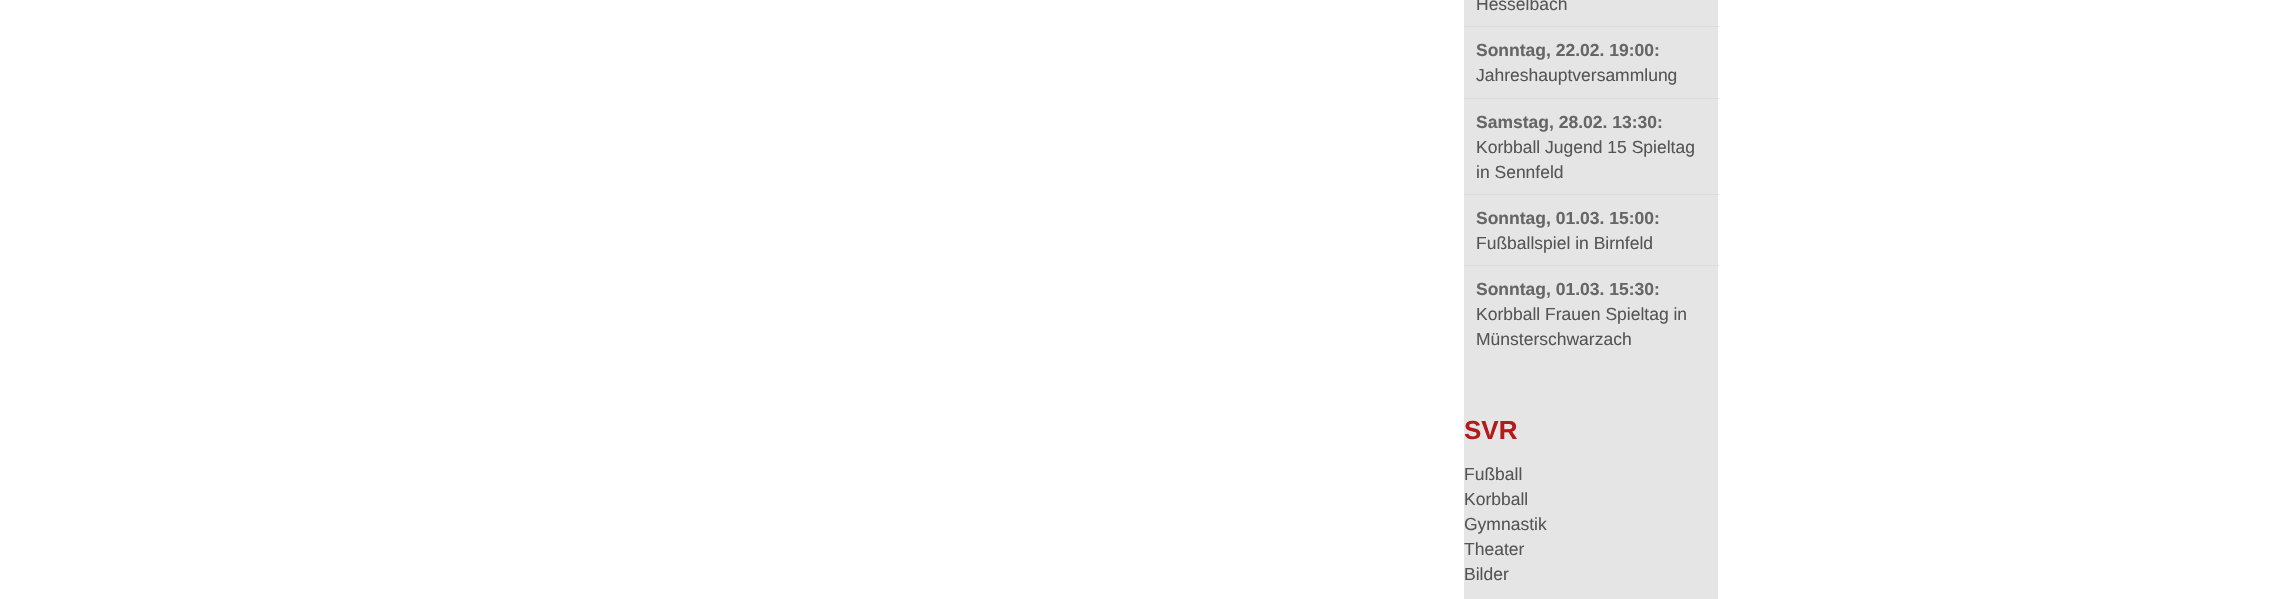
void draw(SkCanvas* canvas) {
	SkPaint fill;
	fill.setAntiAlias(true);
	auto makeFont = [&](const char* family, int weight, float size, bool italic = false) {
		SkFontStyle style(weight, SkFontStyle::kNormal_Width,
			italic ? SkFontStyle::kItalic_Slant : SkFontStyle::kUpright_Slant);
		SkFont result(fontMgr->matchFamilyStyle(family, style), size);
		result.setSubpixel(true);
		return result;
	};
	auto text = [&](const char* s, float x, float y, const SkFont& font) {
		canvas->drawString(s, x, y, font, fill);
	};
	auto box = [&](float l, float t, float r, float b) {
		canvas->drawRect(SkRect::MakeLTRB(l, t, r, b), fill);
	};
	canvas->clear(0xFFFFFFFF);
	fill.setColor(0xFFE5E5E5);
	box(1464, 0, 1718, 599);
	fill.setColor(0xFFDDDDDD);
	box(1464, 26, 1719, 27);
	box(1464, 98, 1719, 99);
	box(1464, 194, 1719, 195);
	box(1464, 265, 1719, 266);
	auto font1 = makeFont("Liberation Sans", 400, 17.5f);
	fill.setColor(0xFF555555);
	text("Hesselbach", 1476, 10, font1);
	auto font2 = makeFont("Liberation Sans", 700, 17.5f);
	fill.setColor(0xFF666666);
	text("Sonntag, 22.02. 19:00:", 1476, 56, font2);
	fill.setColor(0xFF555555);
	text("Jahreshauptversammlung", 1476, 81, font1);
	fill.setColor(0xFF666666);
	text("Samstag, 28.02. 13:30:", 1476, 128, font2);
	fill.setColor(0xFF555555);
	text("Korbball Jugend 15 Spieltag", 1476, 153, font1);
	text("in Sennfeld", 1476, 178, font1);
	fill.setColor(0xFF666666);
	text("Sonntag, 01.03. 15:00:", 1476, 224, font2);
	fill.setColor(0xFF555555);
	text("Fußballspiel in Birnfeld", 1476, 249, font1);
	fill.setColor(0xFF666666);
	text("Sonntag, 01.03. 15:30:", 1476, 295, font2);
	fill.setColor(0xFF555555);
	text("Korbball Frauen Spieltag in", 1476, 320, font1);
	text("Münsterschwarzach", 1476, 345, font1);
	auto font3 = makeFont("Liberation Sans", 700, 26);
	fill.setColor(0xFFB51A1B);
	text("SVR", 1464, 439, font3);
	fill.setColor(0xFF555555);
	text("Fußball", 1464, 480, font1);
	text("Korbball", 1464, 505, font1);
	text("Gymnastik", 1464, 530, font1);
	text("Theater", 1464, 555, font1);
	text("Bilder", 1464, 580, font1);
}
